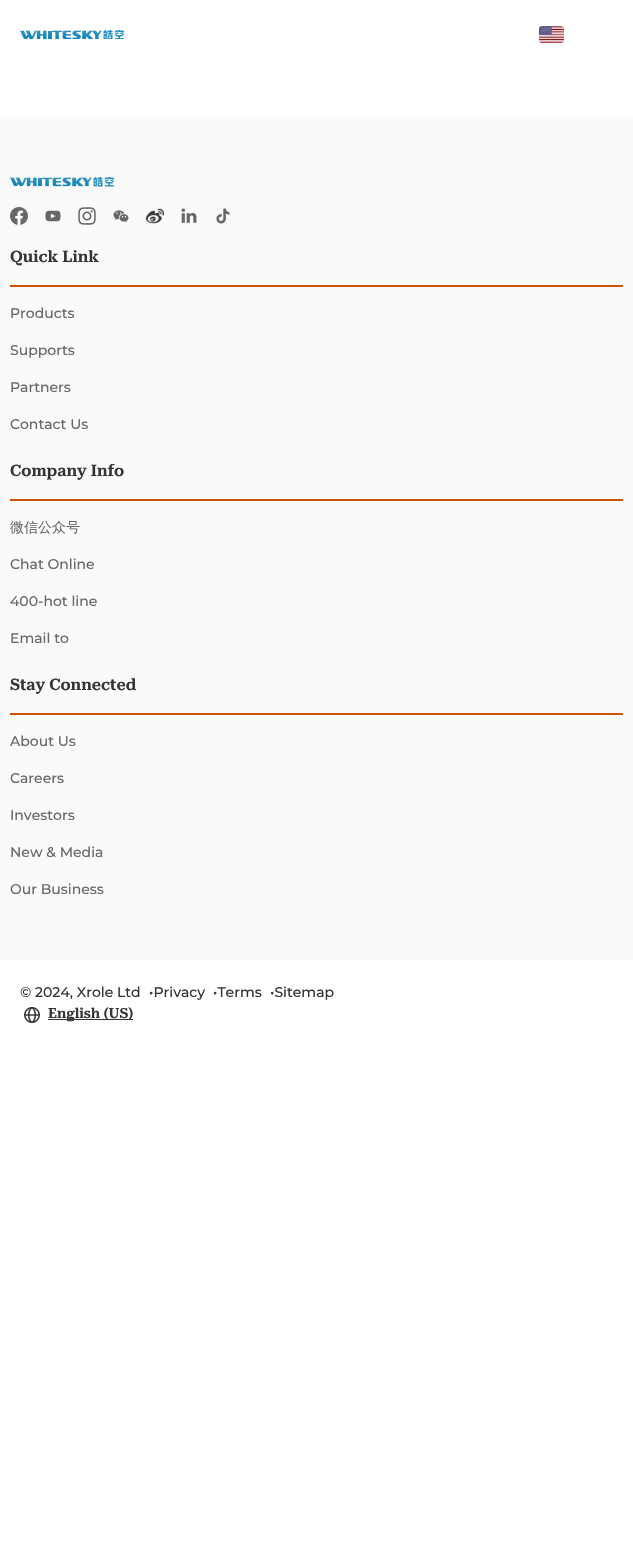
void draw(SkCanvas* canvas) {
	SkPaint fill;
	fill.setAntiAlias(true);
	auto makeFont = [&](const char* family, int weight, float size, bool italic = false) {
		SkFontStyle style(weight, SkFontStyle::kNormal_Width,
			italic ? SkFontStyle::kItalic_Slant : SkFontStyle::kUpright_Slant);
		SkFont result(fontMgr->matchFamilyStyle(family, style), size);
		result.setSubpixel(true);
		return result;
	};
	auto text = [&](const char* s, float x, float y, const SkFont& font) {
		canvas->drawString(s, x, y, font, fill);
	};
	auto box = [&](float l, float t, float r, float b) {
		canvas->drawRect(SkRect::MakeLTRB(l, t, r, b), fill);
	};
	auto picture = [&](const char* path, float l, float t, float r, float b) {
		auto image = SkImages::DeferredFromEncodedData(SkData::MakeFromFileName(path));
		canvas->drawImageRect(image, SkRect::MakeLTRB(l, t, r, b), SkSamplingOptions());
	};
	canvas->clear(0xFFFFFFFF);
	picture("image0.png", 20, 30, 124, 39);
	picture("image1.png", 539, 26, 564, 43);
	fill.setColor(0xFFFAFAFA);
	box(0, 117, 633, 960);
	picture("image2.png", 10, 177, 114, 187);
	picture("image3.png", 10, 207, 28, 225);
	picture("image4.png", 45, 210, 61, 222);
	picture("image5.png", 78, 207, 96, 225);
	picture("image6.png", 113, 210, 129, 223);
	picture("image7.png", 146, 208, 164, 224);
	picture("image8.png", 181, 208, 197, 223);
	picture("image9.png", 216, 208, 230, 224);
	fill.setColor(0xFFCC5404);
	box(10, 285, 623, 287);
	box(10, 499, 623, 501);
	box(10, 713, 623, 715);
	picture("image10.png", 24, 1007, 40, 1023);
	fill.setColor(0xFF343434);
	box(48, 1019, 133, 1020);
	auto font1 = makeFont("Roboto Serif", 600, 16);
	text("Quick Link", 10, 262, font1);
	auto font2 = makeFont("Montserrat", 500, 14);
	fill.setColor(0xFF686868);
	text("Products", 10, 318, font2);
	text("Supports", 10, 355, font2);
	text("Partners", 10, 392, font2);
	text("Contact Us", 10, 429, font2);
	fill.setColor(0xFF343434);
	text("Company Info", 10, 476, font1);
	auto font3 = makeFont("WenQuanYi Zen Hei", 500, 14);
	fill.setColor(0xFF686868);
	text("微信公众号", 10, 532, font3);
	text("Chat Online", 10, 569, font2);
	text("400-hot line", 10, 606, font2);
	text("Email to", 10, 643, font2);
	fill.setColor(0xFF343434);
	text("Stay Connected", 10, 690, font1);
	fill.setColor(0xFF686868);
	text("About Us", 10, 746, font2);
	text("Careers", 10, 783, font2);
	text("Investors", 10, 820, font2);
	text("New & Media", 10, 857, font2);
	text("Our Business", 10, 894, font2);
	fill.setColor(0xFF343434);
	text("© 2024, Xrole Ltd", 20, 997, font2);
	text("•Privacy", 149, 997, font2);
	text("•Terms", 213, 997, font2);
	text("•Sitemap", 270, 997, font2);
	auto font4 = makeFont("Roboto Serif", 600, 14);
	text("English (US)", 48, 1018, font4);
}
